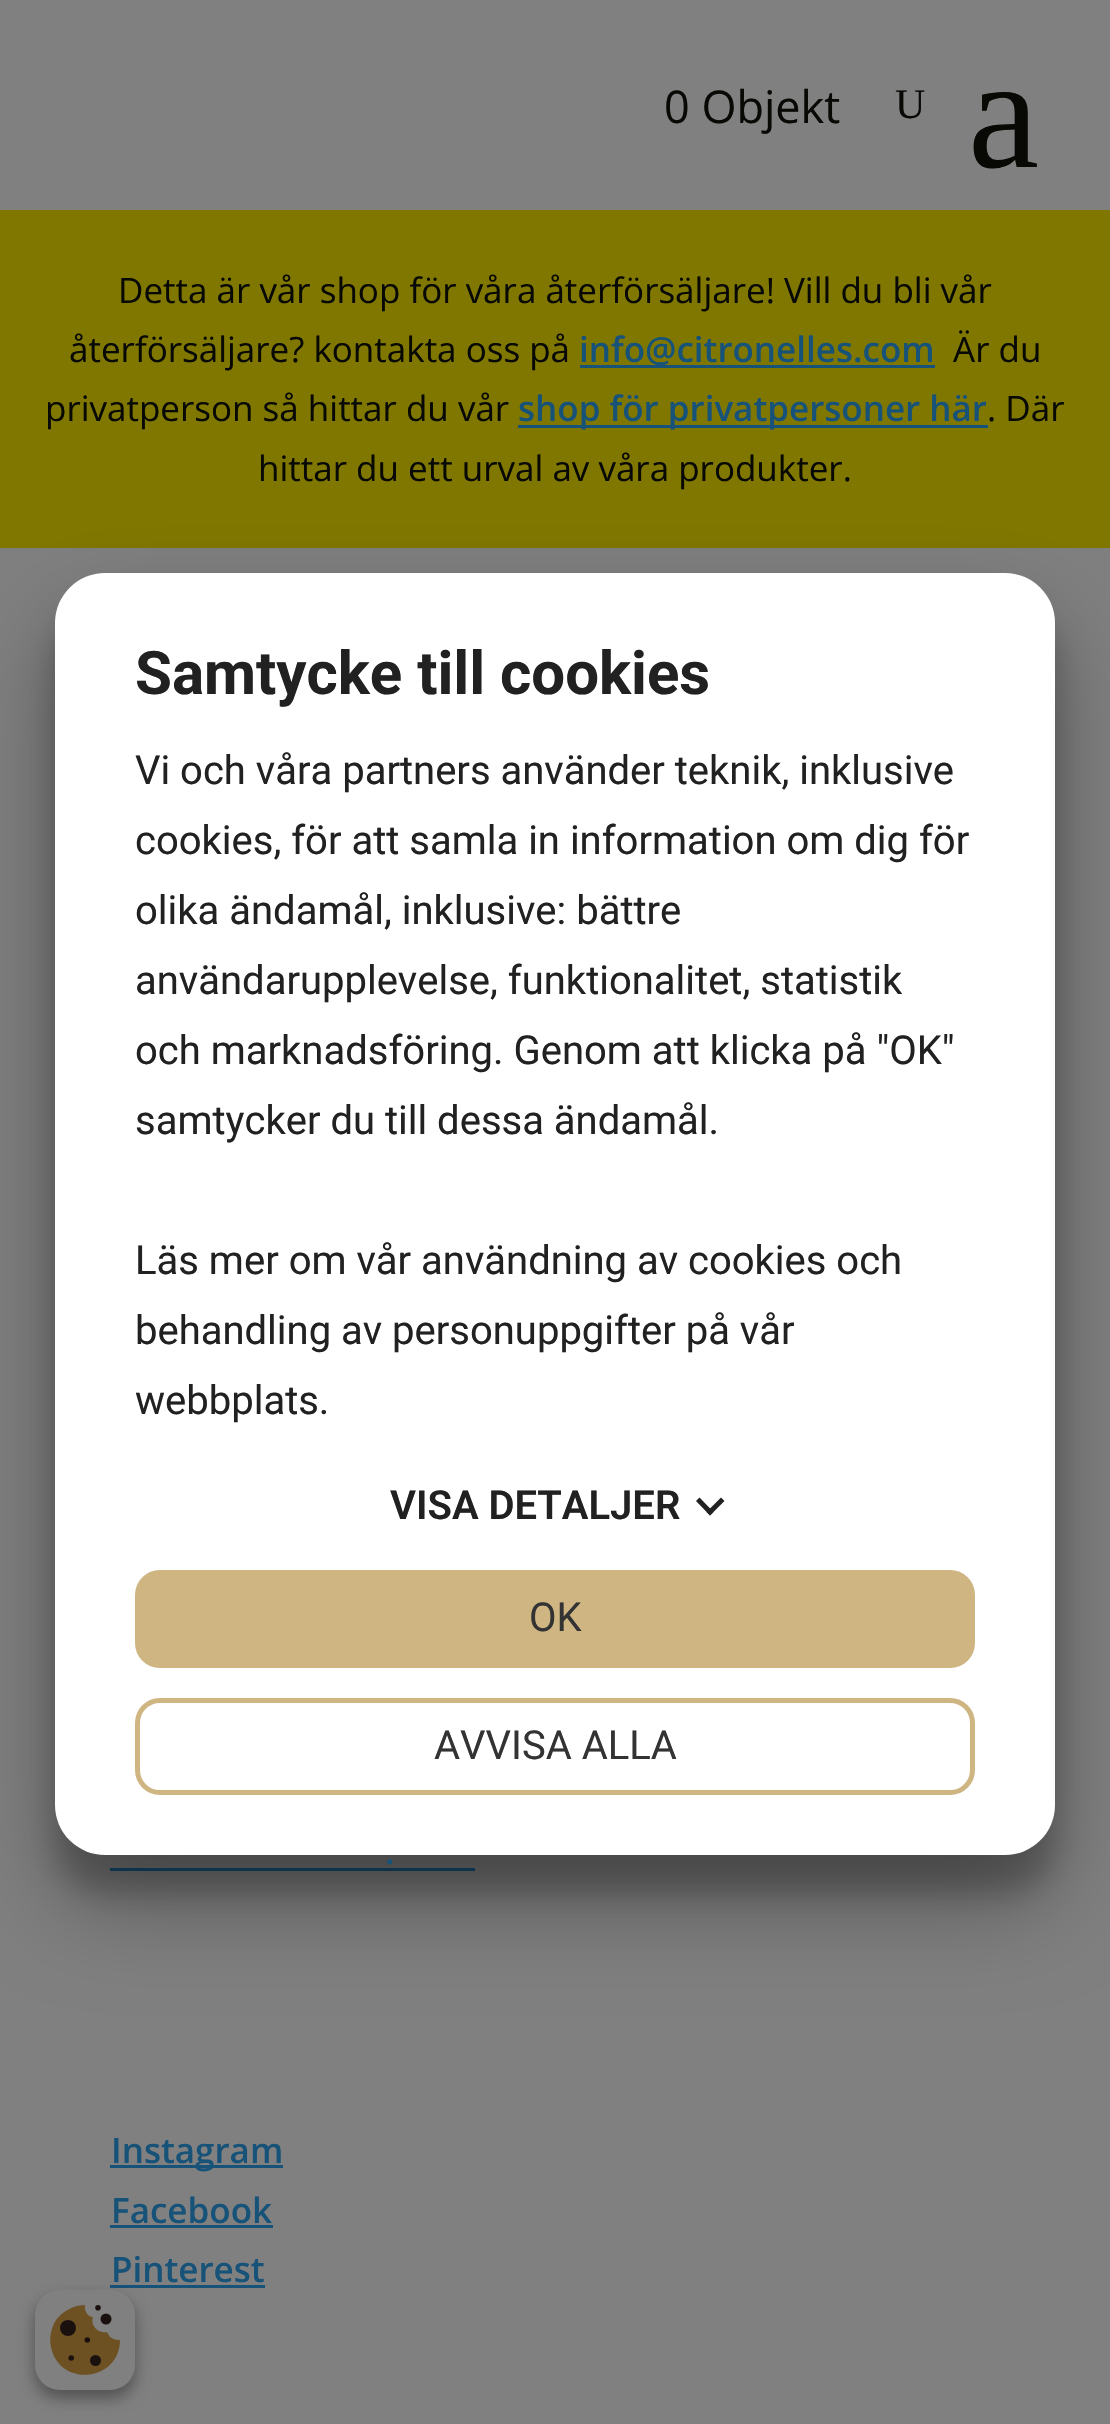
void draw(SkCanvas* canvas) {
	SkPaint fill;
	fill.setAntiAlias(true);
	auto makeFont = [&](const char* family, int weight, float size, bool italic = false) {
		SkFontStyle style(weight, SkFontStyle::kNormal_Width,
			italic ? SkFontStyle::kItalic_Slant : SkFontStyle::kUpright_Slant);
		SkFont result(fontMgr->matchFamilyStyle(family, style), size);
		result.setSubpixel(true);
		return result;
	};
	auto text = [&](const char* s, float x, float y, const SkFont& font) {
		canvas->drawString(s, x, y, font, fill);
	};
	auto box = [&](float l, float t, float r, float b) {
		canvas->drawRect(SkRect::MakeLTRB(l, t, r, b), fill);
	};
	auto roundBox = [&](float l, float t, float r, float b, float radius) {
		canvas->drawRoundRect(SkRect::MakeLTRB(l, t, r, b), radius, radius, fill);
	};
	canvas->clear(0xFF808080);
	fill.setColor(0xFF807700);
	box(0, 210, 1110, 548);
	fill.setColor(0xFF175279);
	box(580, 365, 935, 368);
	box(518, 425, 988, 428);
	box(110, 1868, 475, 1871);
	box(110, 2165, 283, 2168);
	box(110, 2225, 273, 2228);
	box(110, 2285, 265, 2288);
	fill.setColor(0x38000000);
	fill.setMaskFilter(SkMaskFilter::MakeBlur(kNormal_SkBlurStyle, 15));
	canvas->drawRoundRect(SkRect::MakeLTRB(55, 610, 1055, 1893), 50, 50, fill);
	fill.setMaskFilter(nullptr);
	fill.setColor(0x4D000000);
	fill.setMaskFilter(SkMaskFilter::MakeBlur(kNormal_SkBlurStyle, 47.5f));
	canvas->drawRoundRect(SkRect::MakeLTRB(55, 620, 1055, 1903), 50, 50, fill);
	fill.setMaskFilter(nullptr);
	fill.setColor(0xFFFFFFFF);
	roundBox(55, 573, 1055, 1855, 50);
	fill.setColor(0xFF212121);
	canvas->drawPath(SkPathBuilder().moveTo(721, 1497.5f).lineTo(724.5f, 1501).lineTo(710, 1515.5f).lineTo(706.5f, 1512).close().detach(), fill);
	canvas->drawPath(SkPathBuilder().moveTo(699.5f, 1497.5f).lineTo(713.5f, 1512).lineTo(710, 1515.5f).lineTo(696, 1501).close().detach(), fill);
	fill.setColor(0xFFCEB582);
	canvas->drawRoundRect(SkRect::MakeLTRB(137.5f, 1572.5f, 972.5f, 1665.5f), 22.5f, 22.5f, fill);
	fill.setStyle(SkPaint::kStroke_Style);
	fill.setStrokeWidth(5);
	canvas->drawRoundRect(SkRect::MakeLTRB(137.5f, 1572.5f, 972.5f, 1665.5f), 22.5f, 22.5f, fill);
	canvas->drawRoundRect(SkRect::MakeLTRB(137.5f, 1700.5f, 972.5f, 1792.5f), 22.5f, 22.5f, fill);
	fill.setStyle(SkPaint::kFill_Style);
	fill.setColor(0x3B000000);
	fill.setMaskFilter(SkMaskFilter::MakeBlur(kNormal_SkBlurStyle, 7.5f));
	canvas->drawRoundRect(SkRect::MakeLTRB(35, 2298, 135, 2398), 25, 25, fill);
	fill.setMaskFilter(nullptr);
	fill.setColor(0x29000000);
	fill.setMaskFilter(SkMaskFilter::MakeBlur(kNormal_SkBlurStyle, 7.5f));
	canvas->drawRoundRect(SkRect::MakeLTRB(35, 2298, 135, 2398), 25, 25, fill);
	fill.setMaskFilter(nullptr);
	fill.setColor(0xFF808080);
	roundBox(35, 2290, 135, 2390, 25);
	fill.setColor(0xFF6D5123);
	canvas->drawPath(SkPathBuilder().moveTo(119, 2340).cubicTo(113, 2340, 109, 2337, 107, 2332).cubicTo(99, 2334, 90, 2326, 93, 2317).cubicTo(88, 2317, 84, 2311, 85, 2305).cubicTo(74, 2305, 63, 2311, 56, 2320).cubicTo(51, 2328, 49, 2338, 51, 2347).cubicTo(59, 2388, 120, 2382, 120, 2340).close().detach(), fill);
	fill.setColor(0xFF1A100D);
	canvas->drawCircle(106, 2319, 5.5f, fill);
	canvas->drawCircle(95.5f, 2360.5f, 5.5f, fill);
	canvas->drawCircle(68, 2328, 8, fill);
	canvas->drawCircle(98, 2307.8f, 2.8f, fill);
	canvas->drawCircle(87.3f, 2340, 2.8f, fill);
	canvas->drawCircle(71.2f, 2358, 2.8f, fill);
	auto font1 = makeFont("Open Sans", 400, 45);
	fill.setColor(0xFF080904);
	text("0 Objekt", 664, 123, font1);
	auto font2 = makeFont("Liberation Serif", 400, 42);
	text("U", 895, 118, font2);
	auto font3 = makeFont("Liberation Serif", 400, 160);
	text("a", 968, 167, font3);
	auto font4 = makeFont("Open Sans", 400, 35);
	text("Detta är vår shop för våra återförsäljare! Vill du bli vår", 118, 303, font4);
	text("återförsäljare? kontakta oss på", 69, 362, font4);
	auto font5 = makeFont("Open Sans", 600, 35);
	fill.setColor(0xFF175279);
	text("info@citronelles.com", 579, 362, font5);
	fill.setColor(0xFF080904);
	text("Är du", 953, 362, font4);
	text("privatperson så hittar du vår", 45, 421, font4);
	fill.setColor(0xFF175279);
	text("shop för privatpersoner här", 518, 421, font5);
	fill.setColor(0xFF080904);
	text(". Där", 987, 421, font4);
	text("hittar du ett urval av våra produkter.", 258, 481, font4);
	fill.setColor(0xFF175279);
	text(".", 385, 1864, font5);
	text("Instagram", 111, 2163, font5);
	text("Facebook", 111, 2223, font5);
	text("Pinterest", 111, 2282, font5);
	auto font6 = makeFont("Roboto", 700, 60);
	fill.setColor(0xFF212121);
	text("Samtycke till cookies", 135, 694, font6);
	auto font7 = makeFont("Roboto", 400, 40);
	text("Vi och våra partners använder teknik, inklusive", 135, 784, font7);
	text("cookies, för att samla in information om dig för", 135, 854, font7);
	text("olika ändamål, inklusive: bättre", 135, 924, font7);
	text("användarupplevelse, funktionalitet, statistik", 135, 994, font7);
	text("och marknadsföring. Genom att klicka på \"OK\"", 135, 1064, font7);
	text("samtycker du till dessa ändamål.", 135, 1134, font7);
	text("Läs mer om vår användning av cookies och", 135, 1274, font7);
	text("behandling av personuppgifter på vår", 135, 1344, font7);
	text("webbplats.", 135, 1414, font7);
	auto font8 = makeFont("Roboto", 600, 40);
	text("VISA DETALJER", 390, 1519, font8);
	fill.setColor(0xFF333333);
	text("OK", 529, 1631, font7);
	text("AVVISA ALLA", 434, 1759, font7);
}
